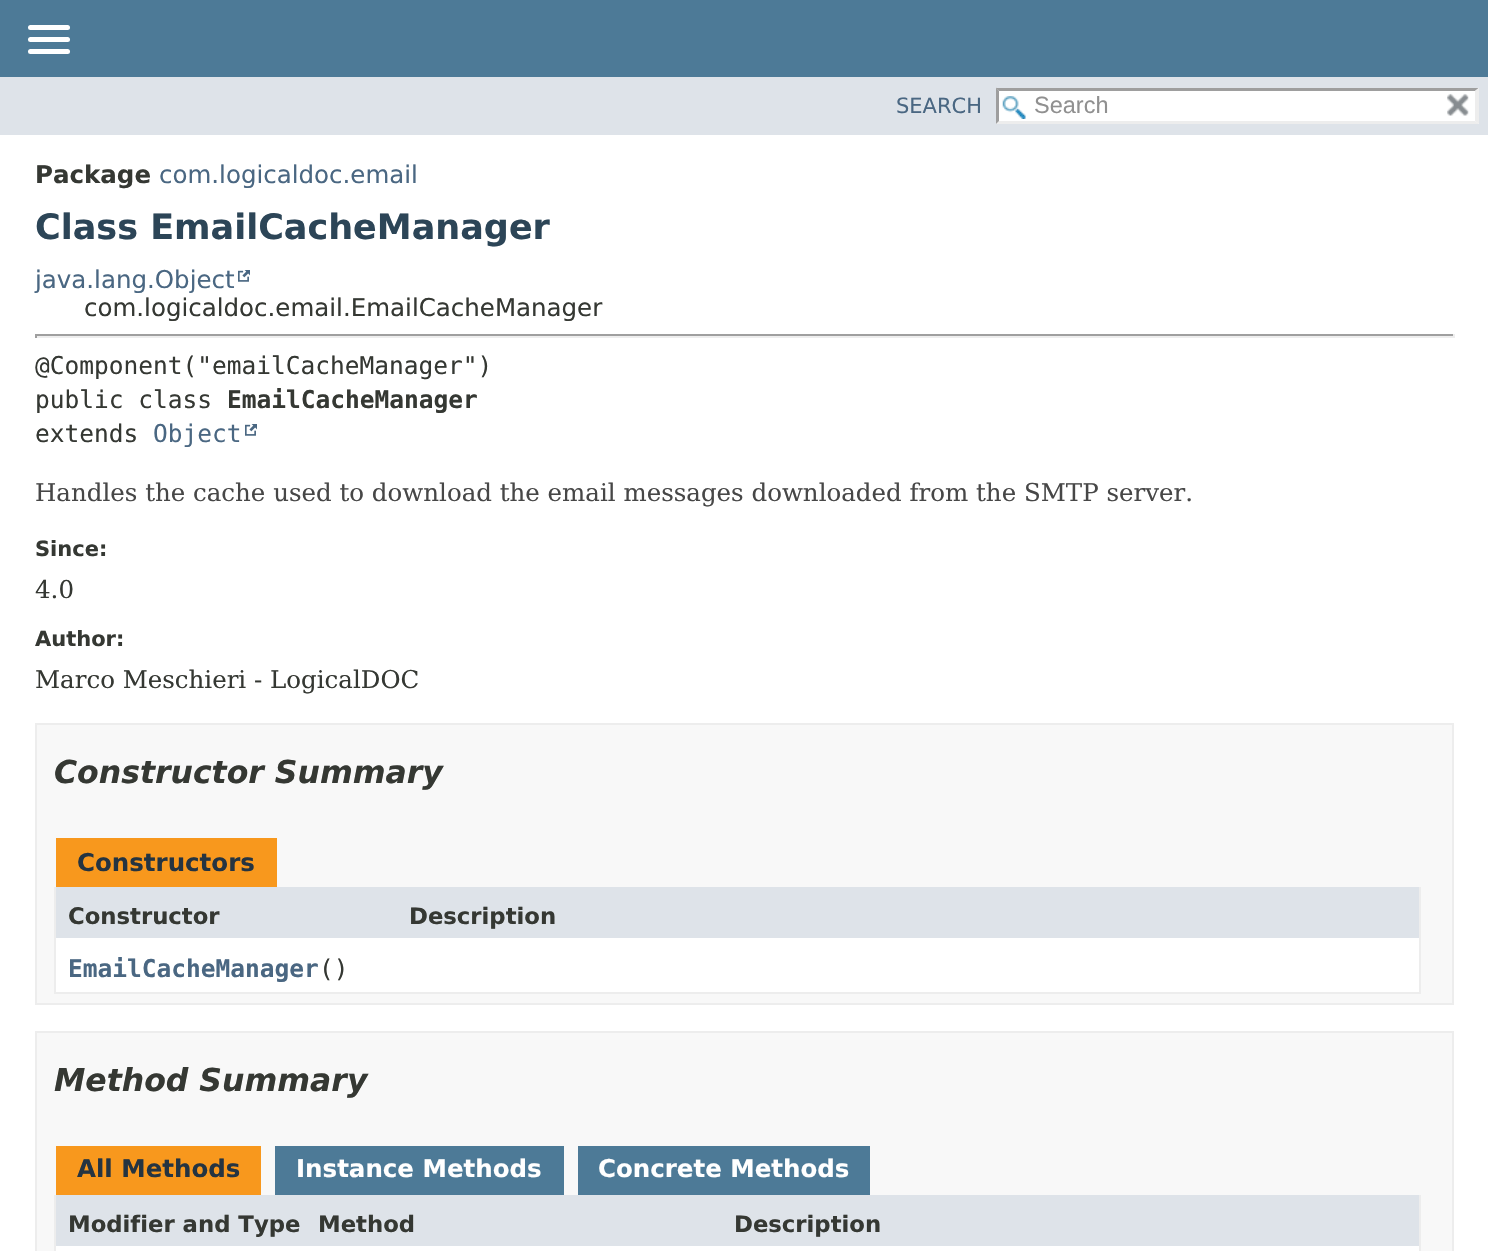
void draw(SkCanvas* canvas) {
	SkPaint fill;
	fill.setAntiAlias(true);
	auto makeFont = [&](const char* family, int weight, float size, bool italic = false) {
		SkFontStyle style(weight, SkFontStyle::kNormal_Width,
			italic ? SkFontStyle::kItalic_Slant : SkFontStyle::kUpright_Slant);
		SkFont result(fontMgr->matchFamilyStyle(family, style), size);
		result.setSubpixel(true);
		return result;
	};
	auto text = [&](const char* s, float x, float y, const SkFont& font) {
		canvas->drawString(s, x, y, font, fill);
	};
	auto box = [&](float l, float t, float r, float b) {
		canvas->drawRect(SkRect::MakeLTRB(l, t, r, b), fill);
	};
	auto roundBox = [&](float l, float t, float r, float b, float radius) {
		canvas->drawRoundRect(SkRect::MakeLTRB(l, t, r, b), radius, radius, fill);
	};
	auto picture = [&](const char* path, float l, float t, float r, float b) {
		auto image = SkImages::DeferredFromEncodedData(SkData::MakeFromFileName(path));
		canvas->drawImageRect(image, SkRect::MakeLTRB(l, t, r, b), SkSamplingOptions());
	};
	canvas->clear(0xFFFFFFFF);
	fill.setColor(0xFF4D7A97);
	box(0, 0, 1488, 77);
	fill.setColor(0xFFFFFFFF);
	roundBox(28, 25, 70, 30, 2.5f);
	roundBox(28, 37, 70, 42, 2.5f);
	roundBox(28, 49, 70, 54, 2.5f);
	fill.setColor(0xFFDEE3E9);
	box(0, 77, 1488, 135);
	fill.setColor(0xFFFFFFFF);
	box(996, 88, 1479, 124);
	picture("image0.png", 1002, 96, 1026, 119);
	fill.setColor(0xFF9E9E9E);
	canvas->drawPath(SkPathBuilder().moveTo(996, 88).lineTo(1479, 88).lineTo(1475, 91).lineTo(999, 91).close().detach(), fill);
	fill.setColor(0xFFEDEDED);
	canvas->drawPath(SkPathBuilder().moveTo(1479, 87.5f).lineTo(1479, 124).lineTo(1475, 121).lineTo(1475, 91).close().detach(), fill);
	canvas->drawPath(SkPathBuilder().moveTo(1479, 124).lineTo(996, 124).lineTo(999, 121).lineTo(1475, 121).close().detach(), fill);
	fill.setColor(0xFF9E9E9E);
	canvas->drawPath(SkPathBuilder().moveTo(996, 124).lineTo(996, 87.5f).lineTo(999, 91).lineTo(999, 121).close().detach(), fill);
	picture("image1.png", 1447, 93, 1469, 116);
	picture("image2.png", 238, 270, 250, 282);
	fill.setColor(0xFF9F9F9F);
	box(35, 334, 1454, 336);
	fill.setColor(0xFFEEEEEE);
	box(1453, 334, 1455, 338);
	box(35, 336, 1454, 338);
	fill.setColor(0xFF9F9F9F);
	box(35, 334, 37, 338);
	picture("image2.png", 245, 424, 257, 436);
	fill.setColor(0xFFF8F8F8);
	canvas->drawRect(SkRect::MakeLTRB(36, 724, 1453, 1004), fill);
	fill.setStyle(SkPaint::kStroke_Style);
	fill.setStrokeWidth(2);
	fill.setColor(0xFFEDEDED);
	canvas->drawRect(SkRect::MakeLTRB(36, 724, 1453, 1004), fill);
	fill.setStyle(SkPaint::kFill_Style);
	fill.setColor(0xFFF8981D);
	box(56, 838, 277, 887);
	fill.setColor(0xFFEDEDED);
	box(1419, 887, 1421, 994);
	box(54, 992, 1421, 994);
	box(54, 887, 56, 994);
	fill.setColor(0xFFDEE3E9);
	box(56, 887, 1419, 938);
	fill.setColor(0xFFFFFFFF);
	box(56, 938, 1419, 992);
	fill.setColor(0xFFF8F8F8);
	canvas->drawRect(SkRect::MakeLTRB(36, 1032, 1453, 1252), fill);
	fill.setStyle(SkPaint::kStroke_Style);
	fill.setColor(0xFFEDEDED);
	canvas->drawRect(SkRect::MakeLTRB(36, 1032, 1453, 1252), fill);
	fill.setStyle(SkPaint::kFill_Style);
	fill.setColor(0xFFF8981D);
	box(56, 1146, 261, 1195);
	fill.setColor(0xFF4D7A97);
	box(275, 1146, 564, 1195);
	box(578, 1146, 870, 1195);
	fill.setColor(0xFFEDEDED);
	box(1419, 1195, 1421, 1251);
	box(54, 1195, 56, 1251);
	fill.setColor(0xFFDEE3E9);
	box(56, 1195, 1419, 1246);
	fill.setColor(0xFFFFFFFF);
	box(56, 1246, 1419, 1251);
	auto font1 = makeFont("DejaVu Sans", 400, 21);
	fill.setColor(0xFF4A6782);
	text("SEARCH", 896, 113, font1);
	auto font2 = makeFont("Liberation Sans", 400, 23.5f);
	fill.setColor(0xFF909090);
	text("Search", 1034, 113, font2);
	auto font3 = makeFont("DejaVu Sans", 700, 24.5f);
	fill.setColor(0xFF353833);
	text("Package", 35, 183, font3);
	auto font4 = makeFont("DejaVu Sans", 400, 24.5f);
	fill.setColor(0xFF4A6782);
	text("com.logicaldoc.email", 159, 183, font4);
	auto font5 = makeFont("DejaVu Sans", 700, 35);
	fill.setColor(0xFF2C4557);
	text("Class EmailCacheManager", 35, 239, font5);
	fill.setColor(0xFF4A6782);
	text("java.lang.Object", 35, 288, font4);
	fill.setColor(0xFF353833);
	text("com.logicaldoc.email.EmailCacheManager", 84, 316, font4);
	auto font6 = makeFont("DejaVu Sans Mono", 400, 24.5f);
	text("@Component(\"emailCacheManager\")", 35, 374, font6);
	text("public class", 35, 408, font6);
	auto font7 = makeFont("DejaVu Sans Mono", 700, 24.5f);
	text("EmailCacheManager", 227, 408, font7);
	text("extends", 35, 442, font6);
	fill.setColor(0xFF4A6782);
	text("Object", 153, 442, font6);
	auto font8 = makeFont("DejaVu Serif", 400, 24.5f);
	fill.setColor(0xFF474747);
	text("Handles the cache used to download the email messages downloaded from the SMTP server.", 35, 501, font8);
	auto font9 = makeFont("DejaVu Sans", 700, 21);
	fill.setColor(0xFF353833);
	text("Since:", 35, 556, font9);
	text("4.0", 35, 598, font8);
	text("Author:", 35, 646, font9);
	text("Marco Meschieri - LogicalDOC", 35, 688, font8);
	auto font10 = makeFont("DejaVu Sans", 700, 31.5f, true);
	text("Constructor Summary", 54, 783, font10);
	fill.setColor(0xFF253441);
	text("Constructors", 77, 871, font3);
	auto font11 = makeFont("DejaVu Sans", 700, 22.75f);
	fill.setColor(0xFF353833);
	text("Constructor", 68, 924, font11);
	text("Description", 409, 924, font11);
	fill.setColor(0xFF4A6782);
	text("EmailCacheManager", 68, 977, font7);
	fill.setColor(0xFF353833);
	text("()", 319, 977, font6);
	text("Method Summary", 54, 1091, font10);
	fill.setColor(0xFF253441);
	text("All Methods", 77, 1177, font3);
	fill.setColor(0xFFFFFFFF);
	text("Instance Methods", 296, 1177, font3);
	text("Concrete Methods", 598, 1177, font3);
	fill.setColor(0xFF353833);
	text("Modifier and Type", 68, 1232, font11);
	text("Method", 318, 1232, font11);
	text("Description", 734, 1232, font11);
}
